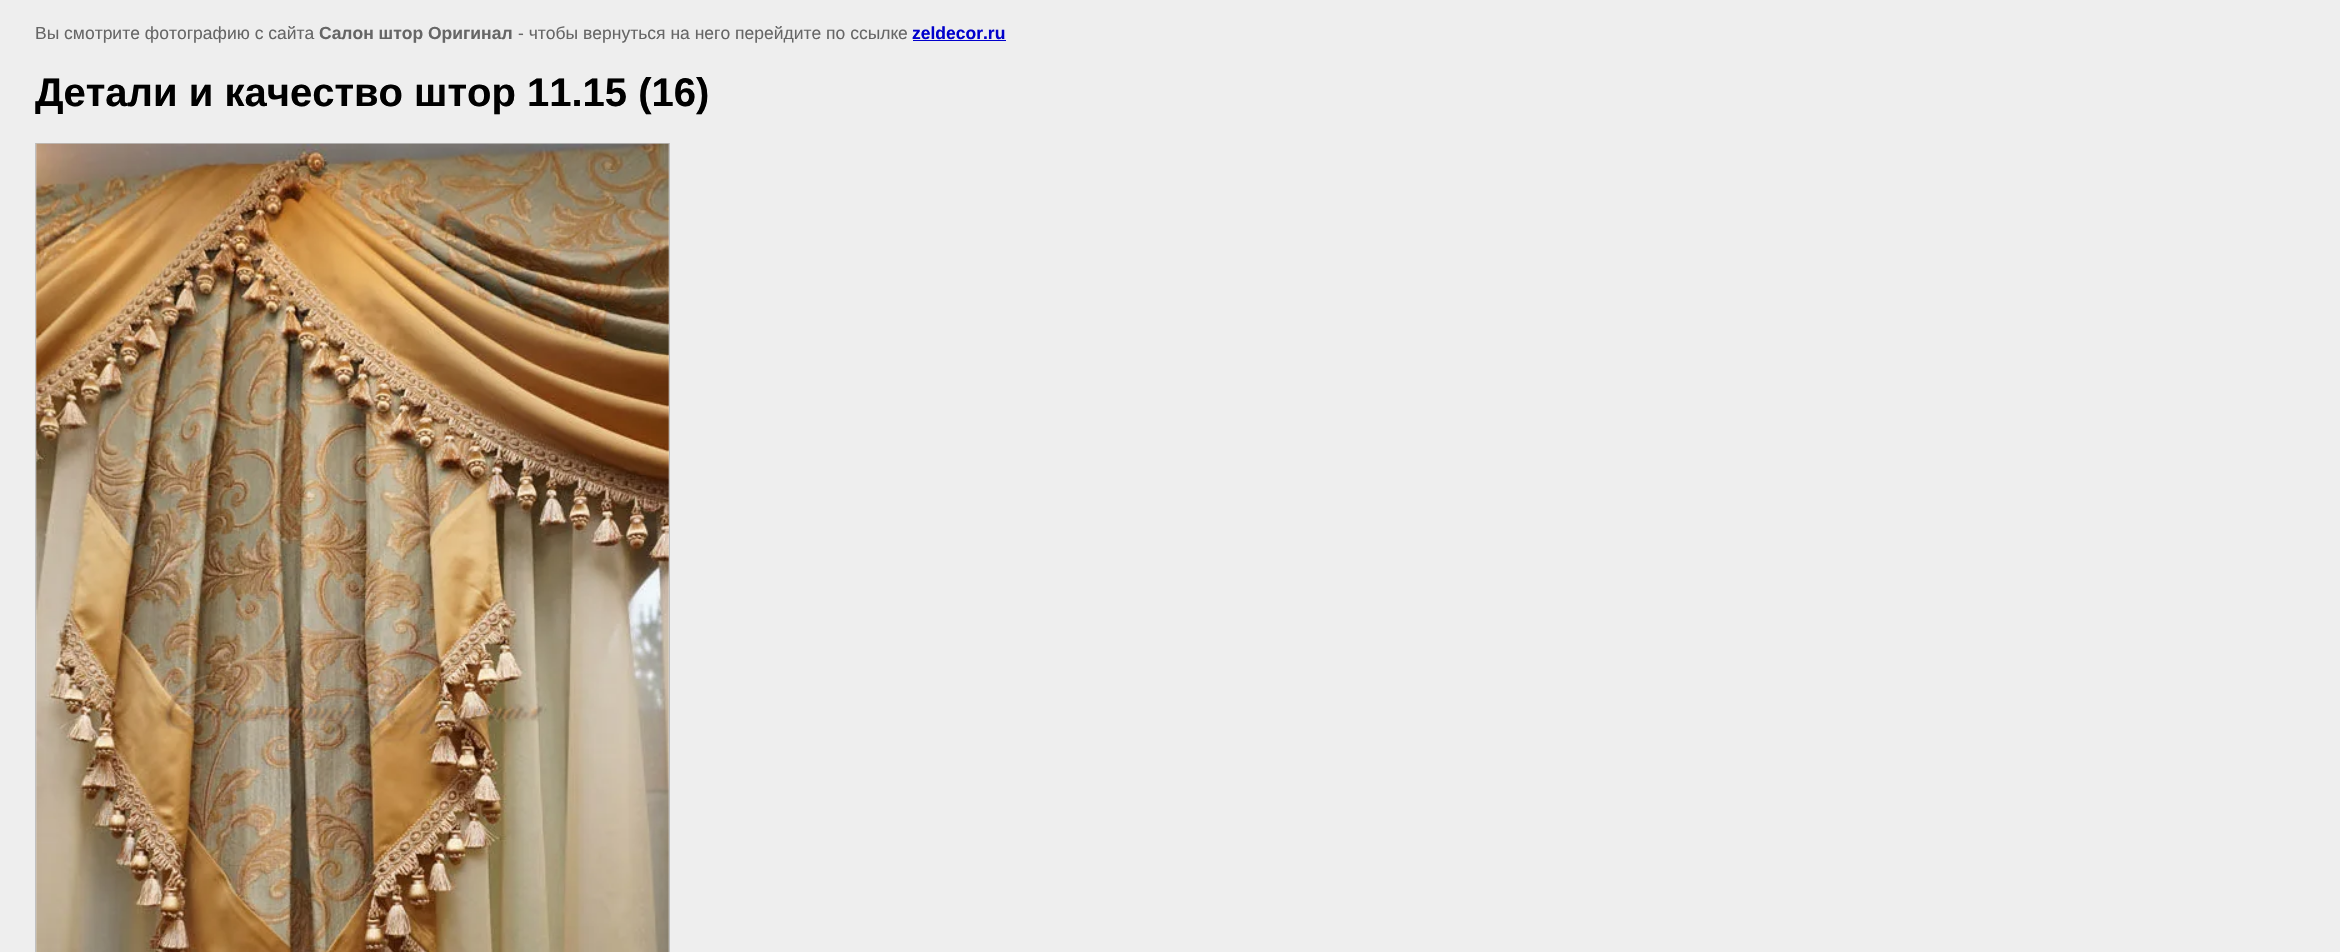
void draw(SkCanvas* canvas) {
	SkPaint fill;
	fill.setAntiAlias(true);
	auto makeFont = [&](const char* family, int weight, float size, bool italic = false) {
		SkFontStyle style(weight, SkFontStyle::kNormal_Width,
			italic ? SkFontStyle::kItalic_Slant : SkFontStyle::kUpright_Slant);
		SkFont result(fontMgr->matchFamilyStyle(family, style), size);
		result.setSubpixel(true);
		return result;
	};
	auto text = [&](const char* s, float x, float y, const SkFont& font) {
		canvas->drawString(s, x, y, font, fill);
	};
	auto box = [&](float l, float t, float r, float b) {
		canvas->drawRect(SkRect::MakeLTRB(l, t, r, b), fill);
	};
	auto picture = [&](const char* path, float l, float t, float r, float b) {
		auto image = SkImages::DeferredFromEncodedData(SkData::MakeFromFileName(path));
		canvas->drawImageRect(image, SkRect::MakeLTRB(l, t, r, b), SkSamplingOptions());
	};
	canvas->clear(0xFFEEEEEE);
	fill.setColor(0xFF0000CC);
	box(913, 40, 1006, 41);
	fill.setStyle(SkPaint::kStroke_Style);
	fill.setStrokeWidth(1);
	fill.setColor(0xFFC0C0C0);
	canvas->drawRect(SkRect::MakeLTRB(35.5f, 143.5f, 669.5f, 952.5f), fill);
	picture("image0.png", 36, 143, 669, 952);
	auto font1 = makeFont("Liberation Sans", 400, 17.5f);
	fill.setStyle(SkPaint::kFill_Style);
	fill.setColor(0xFF666666);
	text("Вы смотрите фотографию с сайта", 35, 39, font1);
	auto font2 = makeFont("Liberation Sans", 700, 17.5f);
	text("Салон штор Оригинал", 319, 39, font2);
	text("- чтобы вернуться на него перейдите по ссылке", 518, 39, font1);
	fill.setColor(0xFF0000CC);
	text("zeldecor.ru", 912, 39, font2);
	auto font3 = makeFont("Liberation Sans", 700, 40);
	fill.setColor(0xFF000000);
	text("Детали и качество штор 11.15 (16)", 35, 106, font3);
}
